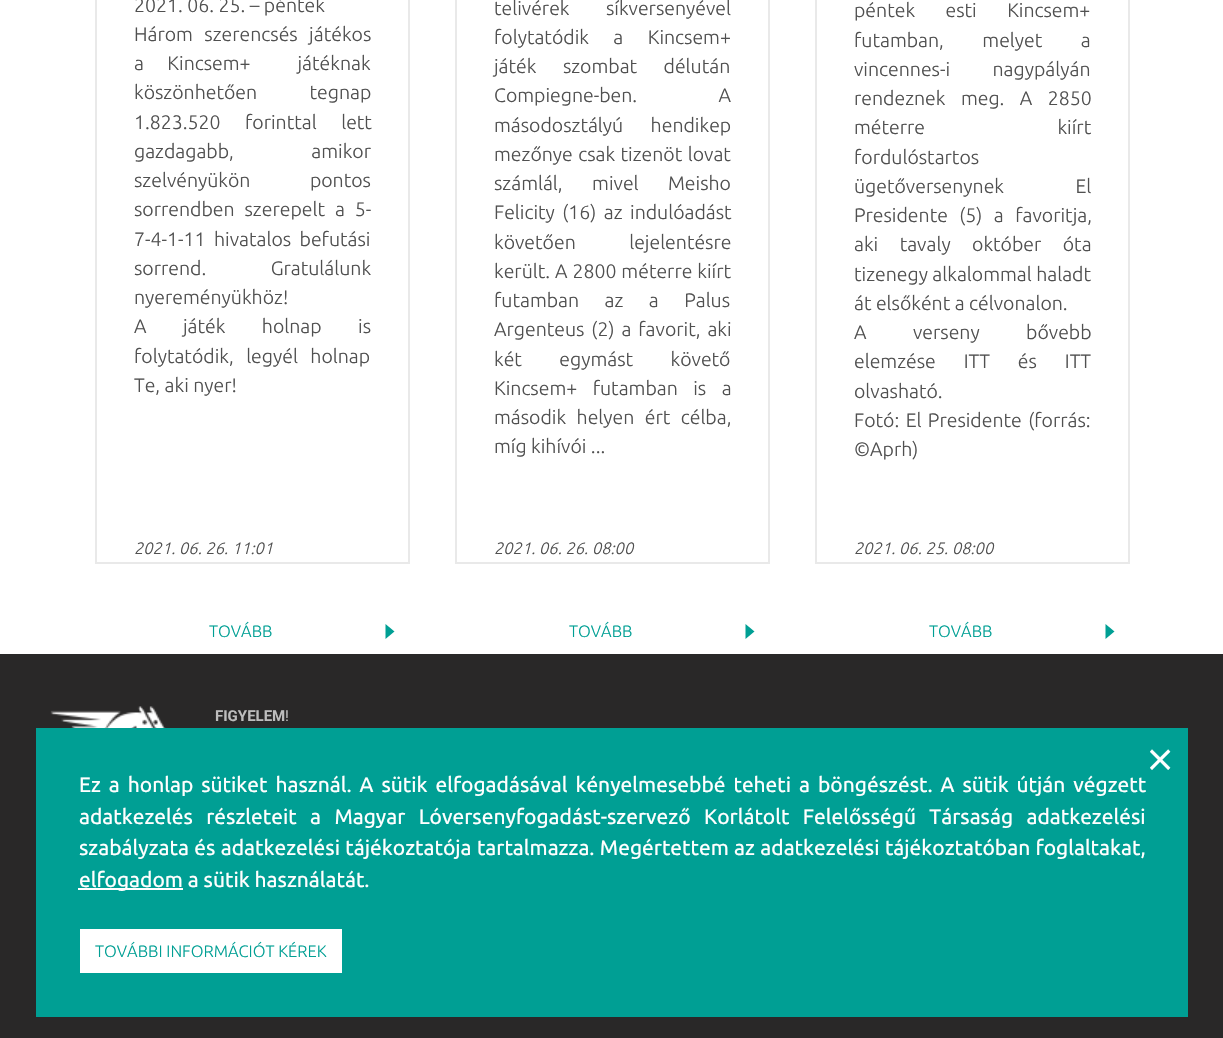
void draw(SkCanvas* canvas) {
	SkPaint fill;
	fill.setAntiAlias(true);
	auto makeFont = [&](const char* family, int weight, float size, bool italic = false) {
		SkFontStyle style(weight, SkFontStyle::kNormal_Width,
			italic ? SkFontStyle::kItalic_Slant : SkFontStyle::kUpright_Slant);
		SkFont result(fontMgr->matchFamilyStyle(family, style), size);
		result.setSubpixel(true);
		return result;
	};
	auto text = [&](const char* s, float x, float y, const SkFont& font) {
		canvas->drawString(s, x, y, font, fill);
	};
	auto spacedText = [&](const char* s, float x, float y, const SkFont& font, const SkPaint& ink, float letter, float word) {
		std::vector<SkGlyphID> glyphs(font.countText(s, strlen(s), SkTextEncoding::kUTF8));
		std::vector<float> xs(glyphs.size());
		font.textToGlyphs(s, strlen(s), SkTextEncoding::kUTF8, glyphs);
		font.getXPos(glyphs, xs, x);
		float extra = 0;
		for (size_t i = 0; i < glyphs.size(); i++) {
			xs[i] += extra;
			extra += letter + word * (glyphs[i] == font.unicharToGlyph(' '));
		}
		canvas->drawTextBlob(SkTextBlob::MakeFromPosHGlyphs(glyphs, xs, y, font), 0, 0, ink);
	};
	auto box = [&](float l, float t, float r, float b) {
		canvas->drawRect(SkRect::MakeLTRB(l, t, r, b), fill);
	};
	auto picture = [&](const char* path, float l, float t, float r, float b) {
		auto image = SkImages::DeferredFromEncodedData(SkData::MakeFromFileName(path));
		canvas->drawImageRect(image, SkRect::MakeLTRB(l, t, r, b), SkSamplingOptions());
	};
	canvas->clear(0xFFFFFFFF);
	fill.setStyle(SkPaint::kStroke_Style);
	fill.setStrokeWidth(2);
	fill.setColor(0xFFE9E9E9);
	canvas->drawRect(SkRect::MakeLTRB(96, -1, 409, 563), fill);
	fill.setStyle(SkPaint::kFill_Style);
	fill.setColor(0xFF009F94);
	canvas->drawPath(SkPathBuilder().moveTo(385.5f, 639).lineTo(385.5f, 624).lineTo(394.5f, 631.5f).close().detach(), fill);
	fill.setStyle(SkPaint::kStroke_Style);
	fill.setColor(0xFFE9E9E9);
	canvas->drawRect(SkRect::MakeLTRB(456, -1, 769, 563), fill);
	fill.setStyle(SkPaint::kFill_Style);
	fill.setColor(0xFF009F94);
	canvas->drawPath(SkPathBuilder().moveTo(745.5f, 639).lineTo(745.5f, 624).lineTo(754.5f, 631.5f).close().detach(), fill);
	fill.setStyle(SkPaint::kStroke_Style);
	fill.setColor(0xFFE9E9E9);
	canvas->drawRect(SkRect::MakeLTRB(816, -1, 1129, 563), fill);
	fill.setStyle(SkPaint::kFill_Style);
	fill.setColor(0xFF009F94);
	canvas->drawPath(SkPathBuilder().moveTo(1105.5f, 639).lineTo(1105.5f, 624).lineTo(1114.5f, 631.5f).close().detach(), fill);
	fill.setColor(0xFF292828);
	box(0, 654, 1223, 1038);
	picture("image0.png", 50, 706, 166, 728);
	fill.setColor(0xFF009F94);
	box(36, 728, 1188, 1017);
	fill.setColor(0xFFFFFFFF);
	box(78, 888, 183, 890);
	box(80, 929, 342, 973);
	auto font1 = makeFont("Ubuntu", 300, 19.5f);
	fill.setColor(0xFF505050);
	text("2021. 06. 25. – péntek", 134, 12, font1);
	spacedText("Három szerencsés játékos", 134, 41, font1, fill, 0, 7);
	spacedText("a Kincsem+  játéknak", 134, 70, font1, fill, 0, 19);
	spacedText("köszönhetően tegnap", 134, 99, font1, fill, 0, 48);
	spacedText("1.823.520 forinttal lett", 134, 129, font1, fill, 0, 20);
	spacedText("gazdagabb, amikor", 134, 158, font1, fill, 0, 73);
	spacedText("szelvényükön pontos", 134, 187, font1, fill, 0, 55);
	spacedText("sorrendben szerepelt a 5-", 134, 216, font1, fill, 0, 5.5f);
	spacedText("7-4-1-11 hivatalos befutási", 134, 246, font1, fill, 0, 4);
	spacedText("sorrend. Gratulálunk", 134, 275, font1, fill, 0, 60);
	text("nyereményükhöz!", 134, 304, font1);
	spacedText("A játék holnap is", 134, 333, font1, fill, 0, 32);
	spacedText("folytatódik, legyél holnap", 134, 363, font1, fill, 0, 8);
	text("Te, aki nyer!", 134, 392, font1);
	auto font2 = makeFont("Ubuntu", 300, 16.5f, true);
	text("2021. 06. 26. 11:01", 134, 554, font2);
	auto font3 = makeFont("Ubuntu", 300, 16.5f);
	fill.setColor(0xFF009F94);
	text("TOVÁBB", 209, 637, font3);
	fill.setColor(0xFF505050);
	spacedText("telivérek síkversenyével", 494, 15, font1, fill, 0, 32);
	spacedText("folytatódik a Kincsem+", 494, 44, font1, fill, 0, 20);
	spacedText("játék szombat délután", 494, 73, font1, fill, 0, 22);
	spacedText("Compiegne-ben. A", 494, 102, font1, fill, 0, 77);
	spacedText("másodosztályú hendikep", 494, 132, font1, fill, 0, 23);
	spacedText("mezőnye csak tizenöt lovat", 494, 161, font1, fill, 0, 1);
	spacedText("számlál, mivel Meisho", 494, 190, font1, fill, 0, 25);
	spacedText("Felicity (16) az indulóadást", 494, 219, font1, fill, 0, 3);
	spacedText("követően lejelentésre", 494, 249, font1, fill, 0, 49);
	spacedText("került. A 2800 méterre kiírt", 494, 278, font1, fill, 0, 0.5f);
	spacedText("futamban az a Palus", 494, 307, font1, fill, 0, 21);
	spacedText("Argenteus (2) a favorit, aki", 494, 336, font1, fill, 0, 2.5f);
	spacedText("két egymást követő", 494, 366, font1, fill, 0, 33);
	spacedText("Kincsem+ futamban is a", 494, 395, font1, fill, 0, 11);
	spacedText("második helyen ért célba,", 494, 424, font1, fill, 0, 6);
	text("míg kihívói ...", 494, 453, font1);
	text("2021. 06. 26. 08:00", 494, 554, font2);
	fill.setColor(0xFF009F94);
	text("TOVÁBB", 569, 637, font3);
	fill.setColor(0xFF505050);
	spacedText("péntek esti Kincsem+", 854, 17, font1, fill, 0, 26);
	spacedText("futamban, melyet a", 854, 47, font1, fill, 0, 34);
	spacedText("vincennes-i nagypályán", 854, 76, font1, fill, 0, 38);
	spacedText("rendeznek meg. A 2850", 854, 105, font1, fill, 0, 11);
	spacedText("méterre kiírt", 854, 134, font1, fill, 0, 128);
	text("fordulóstartos", 854, 164, font1);
	spacedText("ügetőversenynek El", 854, 193, font1, fill, 0, 67);
	spacedText("Presidente (5) a favoritja,", 854, 222, font1, fill, 0, 7);
	spacedText("aki tavaly október óta", 854, 251, font1, fill, 0, 17);
	text("tizenegy alkalommal haladt", 854, 281, font1);
	text("át elsőként a célvonalon.", 854, 310, font1);
	spacedText("A verseny bővebb", 854, 339, font1, fill, 0, 42);
	spacedText("elemzése ITT és ITT", 854, 368, font1, fill, 0, 23.5f);
	text("olvasható.", 854, 398, font1);
	spacedText("Fotó: El Presidente (forrás:", 854, 427, font1, fill, 0, 2);
	text("©Aprh)", 854, 456, font1);
	text("2021. 06. 25. 08:00", 854, 554, font2);
	fill.setColor(0xFF009F94);
	text("TOVÁBB", 929, 637, font3);
	auto font4 = makeFont("Roboto", 700, 15);
	fill.setColor(0xFFBDBDBD);
	text("FIGYELEM", 215, 721, font4);
	auto font5 = makeFont("Roboto", 400, 15);
	text("!", 285, 721, font5);
	auto font6 = makeFont("DejaVu Sans", 400, 36);
	fill.setColor(0xFFFFFFFF);
	text("⨯", 1145, 771, font6);
	auto font7 = makeFont("Ubuntu", 400, 21);
	spacedText("Ez a honlap sütiket használ. A sütik elfogadásával kényelmesebbé teheti a böngészést. A sütik útján végzett", 79, 792, font7, fill, 0, 3.1f);
	spacedText("adatkezelés részleteit a Magyar Lóversenyfogadást-szervező Korlátolt Felelősségű Társaság adatkezelési", 79, 824, font7, fill, 0, 8.5f);
	spacedText("szabályzata és adatkezelési tájékoztatója tartalmazza. Megértettem az adatkezelési tájékoztatóban foglaltakat,", 79, 855, font7, fill, 0, 0.5f);
	text("elfogadom a sütik használatát.", 79, 887, font7);
	fill.setColor(0xFF009F94);
	text("TOVÁBBI INFORMÁCIÓT KÉREK", 95, 957, font3);
}
